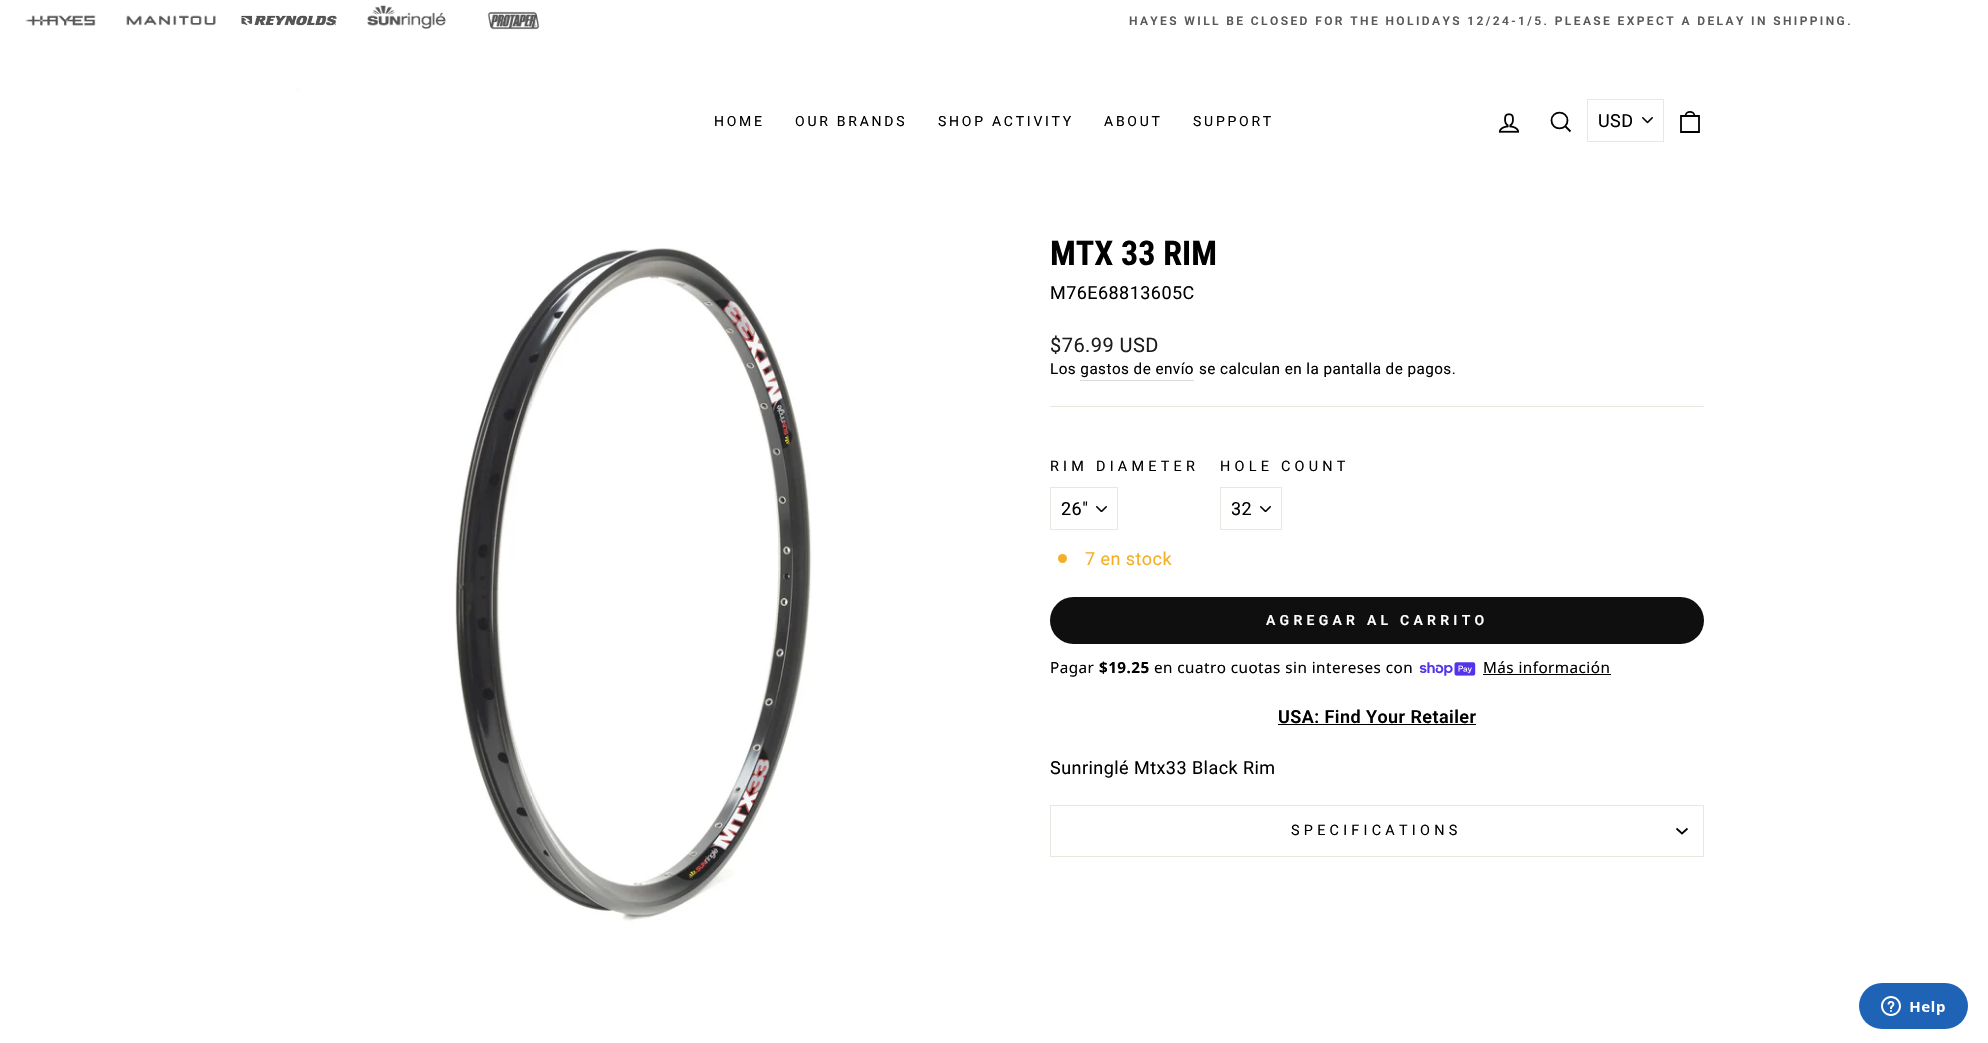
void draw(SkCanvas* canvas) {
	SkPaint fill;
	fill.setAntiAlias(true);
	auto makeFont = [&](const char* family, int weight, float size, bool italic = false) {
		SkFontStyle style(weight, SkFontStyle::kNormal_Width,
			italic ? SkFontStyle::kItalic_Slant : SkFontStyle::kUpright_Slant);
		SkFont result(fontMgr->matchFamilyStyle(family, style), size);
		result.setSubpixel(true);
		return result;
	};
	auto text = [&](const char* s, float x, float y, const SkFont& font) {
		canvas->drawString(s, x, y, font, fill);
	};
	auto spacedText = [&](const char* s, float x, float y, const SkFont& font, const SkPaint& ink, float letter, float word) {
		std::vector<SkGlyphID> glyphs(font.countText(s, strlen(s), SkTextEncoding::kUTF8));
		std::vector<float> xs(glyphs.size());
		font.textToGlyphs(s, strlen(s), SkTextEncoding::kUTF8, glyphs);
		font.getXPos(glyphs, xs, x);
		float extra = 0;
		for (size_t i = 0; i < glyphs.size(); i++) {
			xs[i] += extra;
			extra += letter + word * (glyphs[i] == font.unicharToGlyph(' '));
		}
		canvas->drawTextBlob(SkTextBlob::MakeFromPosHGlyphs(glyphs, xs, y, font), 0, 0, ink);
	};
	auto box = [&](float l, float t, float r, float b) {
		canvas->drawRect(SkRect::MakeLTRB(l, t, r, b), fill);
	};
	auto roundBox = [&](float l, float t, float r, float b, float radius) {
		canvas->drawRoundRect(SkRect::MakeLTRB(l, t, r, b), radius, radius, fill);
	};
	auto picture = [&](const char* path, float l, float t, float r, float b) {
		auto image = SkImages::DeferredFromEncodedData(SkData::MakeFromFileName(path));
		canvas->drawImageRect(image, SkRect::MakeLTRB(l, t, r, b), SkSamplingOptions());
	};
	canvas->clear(0xFFFFFFFF);
	picture("image0.png", 25, 15, 96, 26);
	picture("image1.png", 126, 15, 216, 26);
	picture("image2.png", 241, 15, 337, 26);
	picture("image3.png", 367, 5, 446, 29);
	picture("image4.png", 487, 11, 540, 30);
	picture("image5.png", 284, 88, 300, 91);
	picture("image6.png", 1498, 113, 1520, 133);
	fill.setStyle(SkPaint::kStroke_Style);
	fill.setStrokeWidth(1.8f);
	fill.setColor(0xFF000000);
	canvas->drawPath(SkPathBuilder().moveTo(1567.5f, 120.5f).cubicTo(1567.5f, 131, 1551.5f, 131, 1551.5f, 120.5f).cubicTo(1551.5f, 110, 1567.5f, 110, 1567.5f, 120.5f).close().moveTo(1570.5f, 131.5f).lineTo(1565.5f, 126.5f).detach(), fill);
	picture("image7.png", 1642, 117, 1653, 124);
	fill.setStrokeWidth(1);
	fill.setColor(0xFFE8E8E1);
	canvas->drawRect(SkRect::MakeLTRB(1587.5f, 99.5f, 1663.5f, 141.5f), fill);
	fill.setStrokeWidth(1.8f);
	fill.setColor(0xFF000000);
	canvas->drawPath(SkPathBuilder().moveTo(1681, 116).lineTo(1699, 116).lineTo(1699, 132).lineTo(1681, 132).close().moveTo(1685.5f, 116).cubicTo(1685.5f, 110.5f, 1694.5f, 110.5f, 1694.5f, 116).detach(), fill);
	picture("image8.png", 455, 248, 812, 924);
	fill.setStyle(SkPaint::kFill_Style);
	fill.setColor(0xFFD9D9D9);
	box(1080, 380, 1194, 381);
	fill.setColor(0xFFE8E8E1);
	box(1050, 406, 1704, 407);
	picture("image9.png", 1096, 506, 1107, 512);
	fill.setStyle(SkPaint::kStroke_Style);
	fill.setStrokeWidth(1);
	canvas->drawRect(SkRect::MakeLTRB(1050.5f, 487.5f, 1117.5f, 529.5f), fill);
	picture("image9.png", 1260, 506, 1271, 512);
	canvas->drawRect(SkRect::MakeLTRB(1220.5f, 487.5f, 1281.5f, 529.5f), fill);
	fill.setStyle(SkPaint::kFill_Style);
	fill.setColor(0xFFF4AF29);
	canvas->drawCircle(1062.5f, 558.5f, 4.5f, fill);
	fill.setColor(0xFF0F0F0F);
	roundBox(1050, 597, 1704, 644, 23.5f);
	picture("image10.png", 1419, 662, 1476, 676);
	fill.setColor(0xFF000000);
	box(1483, 674, 1611, 675);
	box(1278, 724, 1476, 725);
	fill.setColor(0xFFE8E8E1);
	box(1050, 856, 1704, 857);
	box(1050, 805, 1704, 806);
	box(1703, 805, 1704, 856);
	box(1050, 805, 1051, 856);
	fill.setStyle(SkPaint::kStroke_Style);
	fill.setStrokeWidth(1.7f);
	fill.setColor(0xFF000000);
	canvas->drawPath(SkPathBuilder().moveTo(1676.5f, 828.5f).lineTo(1682, 833.5f).lineTo(1687.5f, 828.5f).detach(), fill);
	picture("image11.png", 1859, 983, 1968, 1029);
	auto font1 = makeFont("Roboto", 600, 12);
	fill.setStyle(SkPaint::kFill_Style);
	fill.setColor(0xFF595959);
	spacedText("HAYES WILL BE CLOSED FOR THE HOLIDAYS 12/24-1/5. PLEASE EXPECT A DELAY IN SHIPPING.", 1129, 25, font1, fill, 2.4f, 0);
	auto font2 = makeFont("Roboto", 400, 14);
	fill.setColor(0xFF000000);
	spacedText("HOME", 714, 126, font2, fill, 2.75f, 0);
	spacedText("OUR BRANDS", 795, 126, font2, fill, 2.75f, 0);
	spacedText("SHOP ACTIVITY", 938, 126, font2, fill, 2.75f, 0);
	spacedText("ABOUT", 1104, 126, font2, fill, 2.75f, 0);
	spacedText("SUPPORT", 1193, 126, font2, fill, 2.75f, 0);
	auto font3 = makeFont("Roboto", 400, 18);
	spacedText("USD", 1598, 127, font3, fill, 0.45f, 0);
	auto font4 = makeFont("Roboto Condensed", 700, 34);
	text("MTX 33 RIM", 1050, 265, font4);
	spacedText("M76E68813605C", 1050, 299, font3, fill, 0.45f, 0);
	auto font5 = makeFont("Roboto", 400, 20);
	fill.setColor(0xFF1C1D1D);
	spacedText("$76.99 USD", 1050, 352, font5, fill, 0.45f, 0);
	auto font6 = makeFont("Roboto", 400, 15.25f);
	fill.setColor(0xFF000000);
	spacedText("Los gastos de envío", 1050, 374, font6, fill, 0.45f, 0);
	spacedText("se calculan en la pantalla de pagos.", 1199, 374, font6, fill, 0.45f, 0);
	auto font7 = makeFont("Roboto", 400, 14.4f);
	spacedText("RIM DIAMETER", 1050, 471, font7, fill, 4.25f, 0);
	spacedText("26\"", 1061, 515, font3, fill, 0.45f, 0);
	spacedText("HOLE COUNT", 1220, 471, font7, fill, 4.25f, 0);
	spacedText("32", 1231, 515, font3, fill, 0.45f, 0);
	fill.setColor(0xFFF4AF29);
	spacedText("7 en stock", 1085, 565, font3, fill, 0.45f, 0);
	auto font8 = makeFont("Roboto", 600, 14);
	fill.setColor(0xFFFFFFFF);
	spacedText("AGREGAR AL CARRITO", 1266, 625, font8, fill, 4.25f, 0);
	auto font9 = makeFont("Noto Sans", 400, 15.25f);
	fill.setColor(0xFF000000);
	spacedText("Pagar", 1050, 673, font9, fill, 0.45f, 0);
	auto font10 = makeFont("Noto Sans", 700, 15.25f);
	spacedText("$19.25", 1099, 673, font10, fill, 0.45f, 0);
	spacedText("en cuatro cuotas sin intereses con", 1154, 673, font9, fill, 0.45f, 0);
	spacedText("Más información", 1483, 673, font9, fill, 0.45f, 0);
	auto font11 = makeFont("Roboto", 600, 18);
	spacedText("USA: Find Your Retailer", 1278, 723, font11, fill, 0.45f, 0);
	spacedText("Sunringlé Mtx33 Black Rim", 1050, 774, font3, fill, 0.45f, 0);
	spacedText("SPECIFICATIONS", 1291, 835, font7, fill, 4.25f, 0);
}
